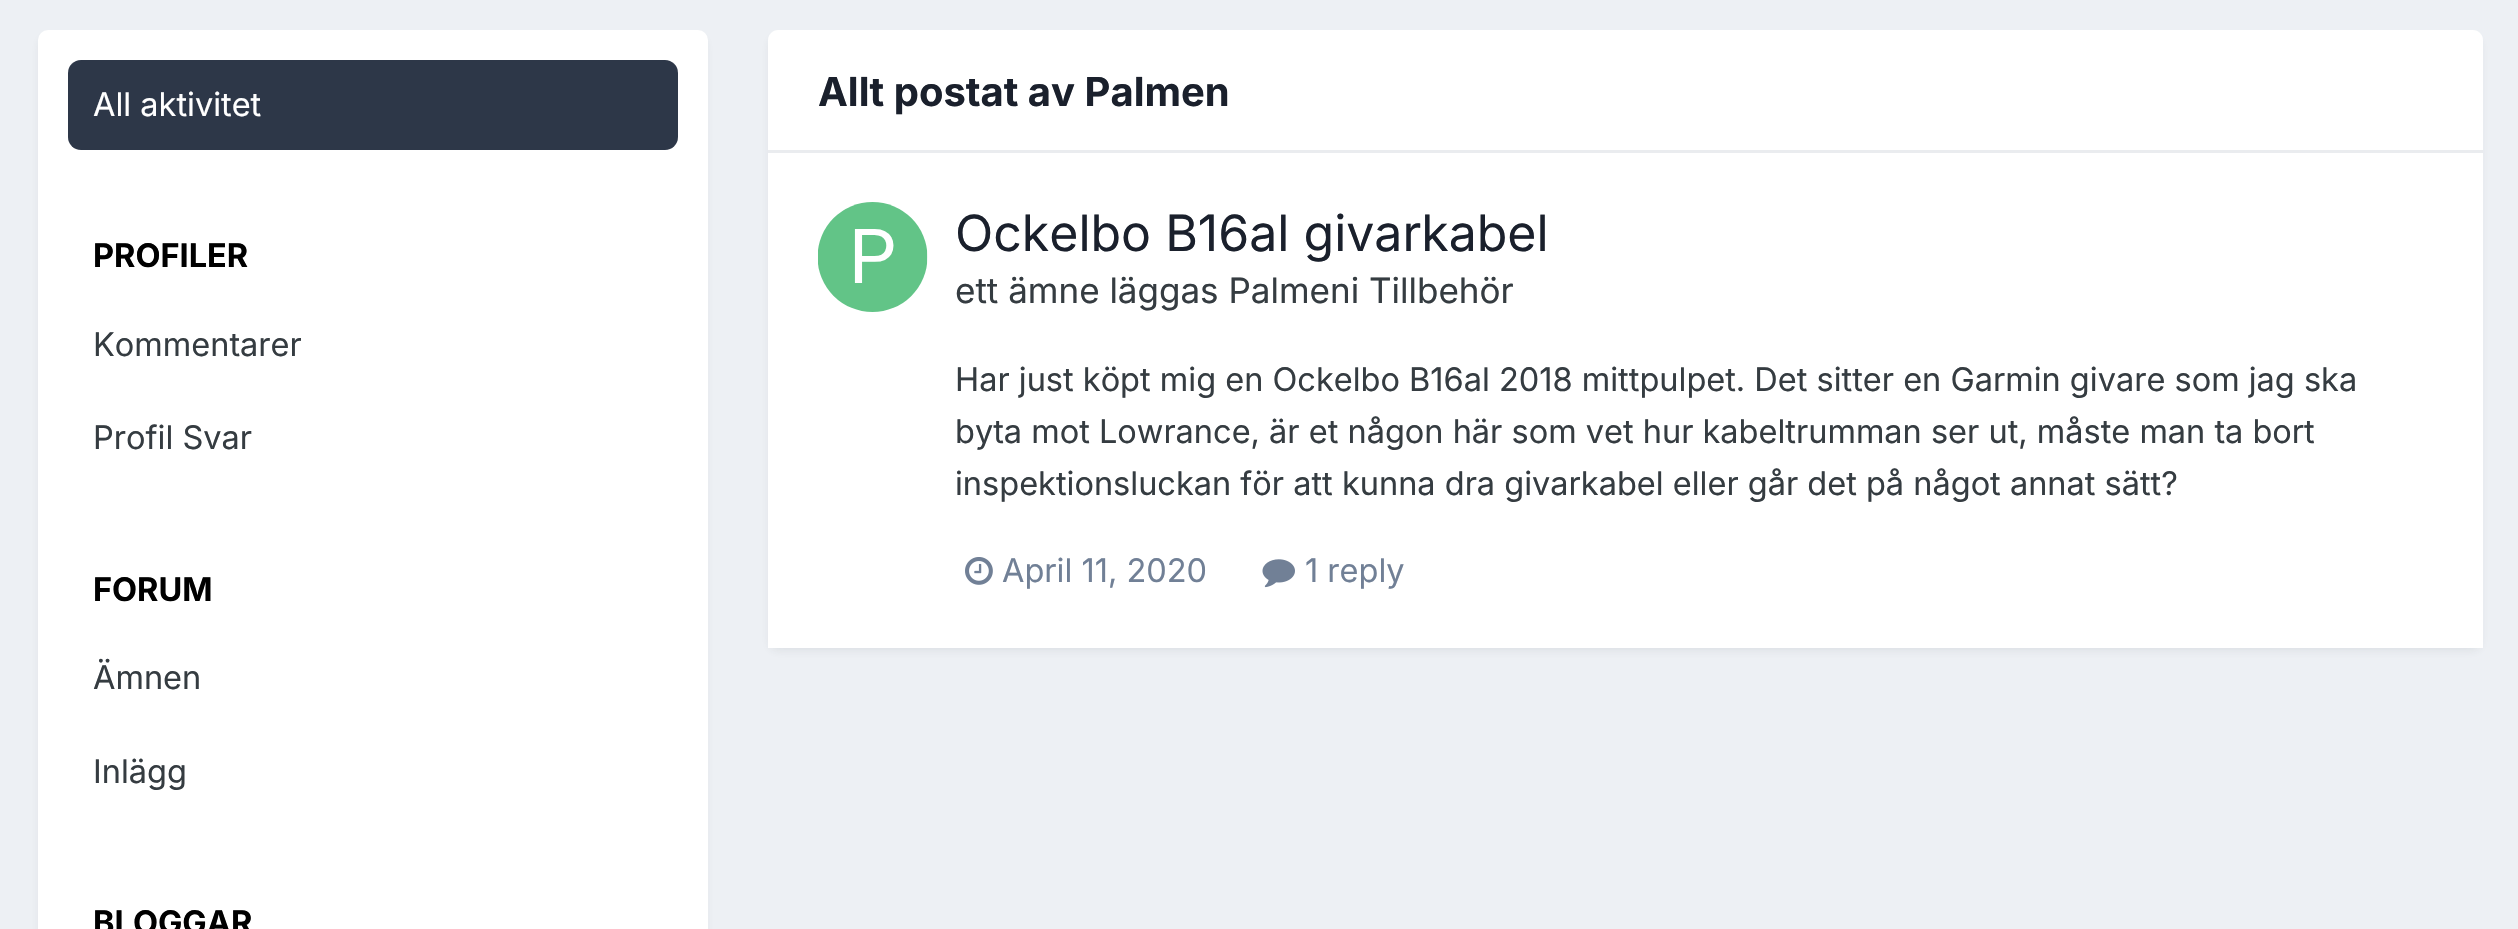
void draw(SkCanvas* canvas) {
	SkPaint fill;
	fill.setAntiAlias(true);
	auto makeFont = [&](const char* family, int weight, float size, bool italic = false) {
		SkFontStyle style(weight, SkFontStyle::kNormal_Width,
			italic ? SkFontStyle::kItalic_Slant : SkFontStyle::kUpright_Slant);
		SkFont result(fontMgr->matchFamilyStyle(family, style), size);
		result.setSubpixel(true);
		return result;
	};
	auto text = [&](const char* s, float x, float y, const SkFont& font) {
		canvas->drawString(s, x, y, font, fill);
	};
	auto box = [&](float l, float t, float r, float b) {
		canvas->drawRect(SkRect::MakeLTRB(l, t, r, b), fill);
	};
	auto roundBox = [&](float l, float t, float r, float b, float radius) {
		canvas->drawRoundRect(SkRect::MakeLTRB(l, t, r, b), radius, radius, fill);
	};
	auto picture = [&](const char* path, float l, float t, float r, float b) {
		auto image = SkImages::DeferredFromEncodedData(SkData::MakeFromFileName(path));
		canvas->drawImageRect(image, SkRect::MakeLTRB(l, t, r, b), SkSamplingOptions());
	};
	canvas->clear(0xFFEDF0F4);
	fill.setColor(0x1A2D3748);
	fill.setMaskFilter(SkMaskFilter::MakeBlur(kNormal_SkBlurStyle, 5));
	canvas->drawRoundRect(SkRect::MakeLTRB(40, 38, 705, 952), 8, 8, fill);
	fill.setMaskFilter(nullptr);
	fill.setColor(0xFFFFFFFF);
	roundBox(38, 30, 708, 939, 10);
	fill.setColor(0xFF2D3748);
	roundBox(68, 60, 678, 150, 13);
	fill.setColor(0x1A2D3748);
	fill.setMaskFilter(SkMaskFilter::MakeBlur(kNormal_SkBlurStyle, 5));
	canvas->drawRoundRect(SkRect::MakeLTRB(770, 38, 2480, 650), 8, 8, fill);
	fill.setMaskFilter(nullptr);
	fill.setColor(0xFFFFFFFF);
	canvas->drawPath(SkPathBuilder().moveTo(778, 30).lineTo(2473, 30).cubicTo(2478.5f, 30, 2483, 34.5f, 2483, 40).lineTo(2483, 153).lineTo(768, 153).lineTo(768, 40).cubicTo(768, 34.5f, 772.5f, 30, 778, 30).close().detach(), fill);
	fill.setColor(0xFFEAECEF);
	box(768, 150, 2483, 153);
	fill.setColor(0xFFFFFFFF);
	box(768, 153, 2483, 648);
	picture("image0.png", 818, 202, 928, 312);
	picture("image1.png", 965, 557, 993, 585);
	picture("image2.png", 1262, 559, 1295, 588);
	auto font1 = makeFont("Inter", 400, 32.5f);
	text("All aktivitet", 93, 116, font1);
	auto font2 = makeFont("Inter", 700, 32.5f);
	fill.setColor(0xFF000000);
	text("PROFILER", 93, 267, font2);
	fill.setColor(0xFF353C41);
	text("Kommentarer", 93, 356, font1);
	text("Profil Svar", 93, 449, font1);
	fill.setColor(0xFF000000);
	text("FORUM", 93, 601, font2);
	fill.setColor(0xFF353C41);
	text("Ämnen", 93, 689, font1);
	text("Inlägg", 93, 783, font1);
	fill.setColor(0xFF000000);
	text("BLOGGAR", 93, 934, font2);
	auto font3 = makeFont("Inter", 700, 40);
	fill.setColor(0xFF1A202C);
	text("Allt postat av Palmen", 818, 106, font3);
	auto font4 = makeFont("Inter", 400, 50);
	text("Ockelbo B16al givarkabel", 955, 251, font4);
	auto font5 = makeFont("Inter", 400, 35);
	fill.setColor(0xFF353C41);
	text("ett ämne läggas Palmeni Tillbehör", 955, 303, font5);
	text("Har just köpt mig en Ockelbo B16al 2018 mittpulpet. Det sitter en Garmin givare som jag ska", 955, 391, font1);
	text("byta mot Lowrance, är et någon här som vet hur kabeltrumman ser ut, måste man ta bort", 955, 443, font1);
	text("inspektionsluckan för att kunna dra givarkabel eller går det på något annat sätt?", 955, 495, font1);
	fill.setColor(0xFF718096);
	text("April 11, 2020", 1002, 582, font1);
	text("1 reply", 1305, 582, font1);
}
